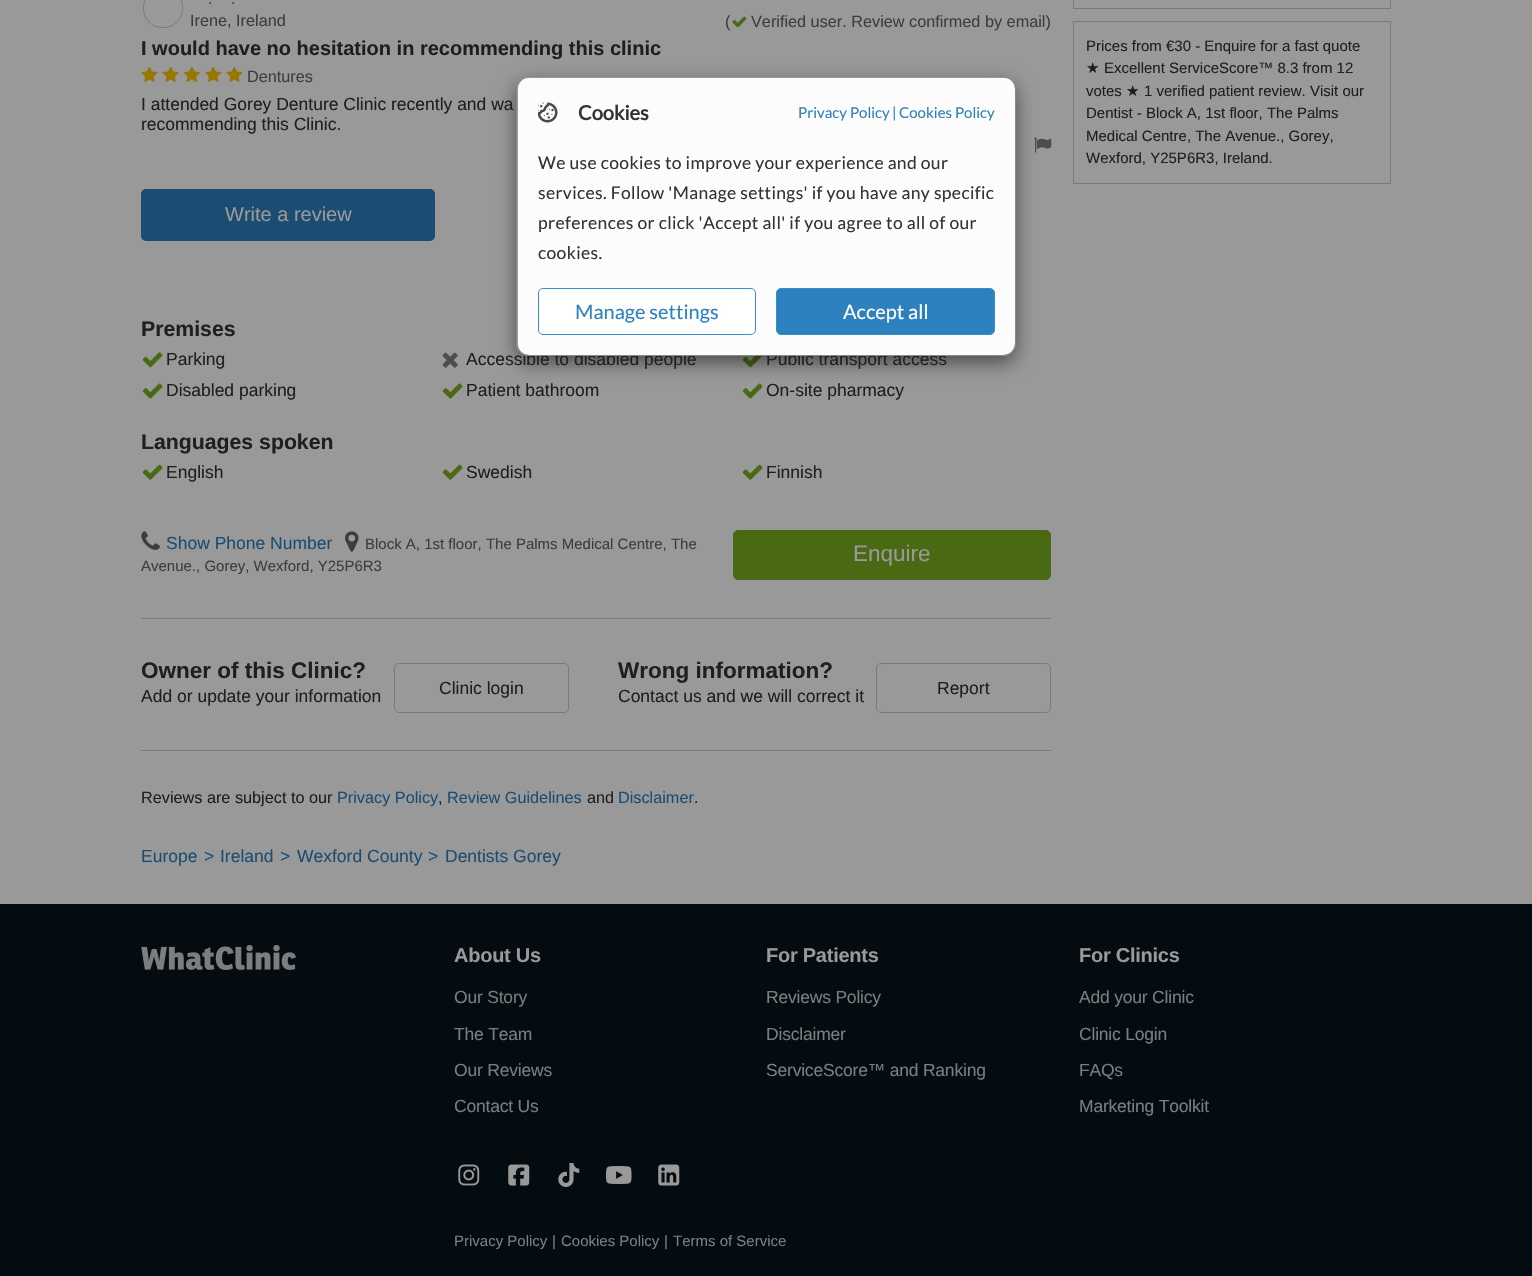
void draw(SkCanvas* canvas) {
	SkPaint fill;
	fill.setAntiAlias(true);
	auto makeFont = [&](const char* family, int weight, float size, bool italic = false) {
		SkFontStyle style(weight, SkFontStyle::kNormal_Width,
			italic ? SkFontStyle::kItalic_Slant : SkFontStyle::kUpright_Slant);
		SkFont result(fontMgr->matchFamilyStyle(family, style), size);
		result.setSubpixel(true);
		return result;
	};
	auto text = [&](const char* s, float x, float y, const SkFont& font) {
		canvas->drawString(s, x, y, font, fill);
	};
	auto spacedText = [&](const char* s, float x, float y, const SkFont& font, const SkPaint& ink, float letter, float word) {
		std::vector<SkGlyphID> glyphs(font.countText(s, strlen(s), SkTextEncoding::kUTF8));
		std::vector<float> xs(glyphs.size());
		font.textToGlyphs(s, strlen(s), SkTextEncoding::kUTF8, glyphs);
		font.getXPos(glyphs, xs, x);
		float extra = 0;
		for (size_t i = 0; i < glyphs.size(); i++) {
			xs[i] += extra;
			extra += letter + word * (glyphs[i] == font.unicharToGlyph(' '));
		}
		canvas->drawTextBlob(SkTextBlob::MakeFromPosHGlyphs(glyphs, xs, y, font), 0, 0, ink);
	};
	auto box = [&](float l, float t, float r, float b) {
		canvas->drawRect(SkRect::MakeLTRB(l, t, r, b), fill);
	};
	auto roundBox = [&](float l, float t, float r, float b, float radius) {
		canvas->drawRoundRect(SkRect::MakeLTRB(l, t, r, b), radius, radius, fill);
	};
	auto picture = [&](const char* path, float l, float t, float r, float b) {
		auto image = SkImages::DeferredFromEncodedData(SkData::MakeFromFileName(path));
		canvas->drawImageRect(image, SkRect::MakeLTRB(l, t, r, b), SkSamplingOptions());
	};
	canvas->clear(0xFF999999);
	fill.setStyle(SkPaint::kStroke_Style);
	fill.setStrokeWidth(1);
	fill.setColor(0xFF7A7A7A);
	canvas->drawRoundRect(SkRect::MakeLTRB(143.5f, -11.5f, 182.5f, 27.5f), 18.5f, 18.5f, fill);
	picture("image0.png", 732, 16, 747, 28);
	picture("image1.png", 141, 66, 158, 82);
	picture("image2.png", 162, 66, 179, 82);
	picture("image3.png", 183, 66, 200, 82);
	picture("image4.png", 205, 66, 222, 82);
	picture("image1.png", 226, 66, 243, 82);
	picture("image5.png", 1034, 137, 1052, 153);
	fill.setStyle(SkPaint::kFill_Style);
	fill.setColor(0xFF1B4D72);
	roundBox(141, 189, 435, 241, 5);
	picture("image6.png", 142, 352, 163, 368);
	picture("image7.png", 442, 352, 458, 368);
	picture("image8.png", 742, 356, 762, 368);
	picture("image9.png", 142, 383, 163, 399);
	picture("image9.png", 442, 383, 463, 399);
	picture("image9.png", 742, 383, 763, 399);
	picture("image10.png", 142, 464, 163, 480);
	picture("image10.png", 442, 464, 463, 480);
	picture("image10.png", 742, 464, 763, 480);
	picture("image11.png", 141, 531, 160, 550);
	picture("image12.png", 345, 531, 359, 552);
	fill.setColor(0xFF496913);
	canvas->drawRoundRect(SkRect::MakeLTRB(733.5f, 530.5f, 1050.5f, 579.5f), 4.5f, 4.5f, fill);
	fill.setStyle(SkPaint::kStroke_Style);
	canvas->drawRoundRect(SkRect::MakeLTRB(733.5f, 530.5f, 1050.5f, 579.5f), 4.5f, 4.5f, fill);
	fill.setStyle(SkPaint::kFill_Style);
	fill.setColor(0xFF7A7A7A);
	box(141, 618, 1051, 619);
	box(141, 750, 1051, 751);
	fill.setStyle(SkPaint::kStroke_Style);
	canvas->drawRoundRect(SkRect::MakeLTRB(394.5f, 663.5f, 568.5f, 712.5f), 4.5f, 4.5f, fill);
	canvas->drawRoundRect(SkRect::MakeLTRB(876.5f, 663.5f, 1050.5f, 712.5f), 4.5f, 4.5f, fill);
	canvas->drawRect(SkRect::MakeLTRB(1073.5f, -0.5f, 1390.5f, 8.5f), fill);
	canvas->drawRect(SkRect::MakeLTRB(1073.5f, 21.5f, 1390.5f, 183.5f), fill);
	canvas->save();
	canvas->clipPath(SkPathBuilder(SkPathFillType::kEvenOdd).moveTo(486, 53).lineTo(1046, 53).lineTo(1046, 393).lineTo(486, 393).close().moveTo(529, 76).lineTo(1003, 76).cubicTo(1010, 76, 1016, 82, 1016, 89).lineTo(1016, 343).cubicTo(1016, 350, 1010, 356, 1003, 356).lineTo(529, 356).cubicTo(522, 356, 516, 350, 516, 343).lineTo(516, 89).cubicTo(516, 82, 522, 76, 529, 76).close().detach(), true);
	fill.setStyle(SkPaint::kFill_Style);
	fill.setColor(0x80000000);
	fill.setMaskFilter(SkMaskFilter::MakeBlur(kNormal_SkBlurStyle, 9.5f));
	canvas->drawRoundRect(SkRect::MakeLTRB(516, 83, 1016, 363), 13, 13, fill);
	fill.setMaskFilter(nullptr);
	canvas->restore();
	fill.setColor(0xFF040C11);
	box(0, 904, 1532, 1276);
	picture("image14.png", 141, 945, 296, 970);
	picture("image15.png", 458, 1164, 480, 1186);
	picture("image16.png", 508, 1164, 530, 1186);
	picture("image17.png", 558, 1163, 580, 1187);
	picture("image18.png", 605, 1166, 632, 1184);
	picture("image19.png", 658, 1164, 680, 1186);
	auto font1 = makeFont("Liberation Sans", 400, 16.25f);
	fill.setColor(0xFF3D3D3D);
	text(".", 208, 4, font1);
	text(".", 231, 4, font1);
	text("Irene, Ireland", 190, 26, font1);
	text("(", 725, 27, font1);
	text("Verified user. Review confirmed by email)", 751, 27, font1);
	auto font2 = makeFont("Liberation Sans", 700, 20);
	fill.setColor(0xFF1F1F1F);
	text("I would have no hesitation in recommending this clinic", 141, 55, font2);
	fill.setColor(0xFF3D3D3D);
	text("Dentures", 247, 82, font1);
	auto font3 = makeFont("Liberation Sans", 400, 17.5f);
	fill.setColor(0xFF1F1F1F);
	text("I attended Gorey Denture Clinic recently and wa", 141, 110, font3);
	text("recommending this Clinic.", 141, 130, font3);
	auto font4 = makeFont("Liberation Sans", 400, 20);
	fill.setColor(0xFF999999);
	text("Write a review", 225, 221, font4);
	auto font5 = makeFont("Liberation Sans", 700, 21.25f);
	fill.setColor(0xFF1F1F1F);
	text("Premises", 141, 336, font5);
	text("Parking", 166, 365, font3);
	text("Accessible to disabled people", 466, 365, font3);
	text("Public transport access", 766, 365, font3);
	text("Disabled parking", 166, 396, font3);
	text("Patient bathroom", 466, 396, font3);
	text("On-site pharmacy", 766, 396, font3);
	text("Languages spoken", 141, 449, font5);
	text("English", 166, 478, font3);
	text("Swedish", 466, 478, font3);
	text("Finnish", 766, 478, font3);
	fill.setColor(0xFF1B4D72);
	text("Show Phone Number", 166, 549, font3);
	auto font6 = makeFont("Liberation Sans", 400, 15);
	fill.setColor(0xFF3D3D3D);
	text("Block A, 1st floor, The Palms Medical Centre, The", 365, 549, font6);
	text("Avenue., Gorey, Wexford, Y25P6R3", 141, 571, font6);
	auto font7 = makeFont("Liberation Sans", 400, 22.5f);
	fill.setColor(0xFF999999);
	text("Enquire", 853, 561, font7);
	auto font8 = makeFont("Liberation Sans", 700, 22.5f);
	fill.setColor(0xFF1F1F1F);
	text("Owner of this Clinic?", 141, 678, font8);
	text("Add or update your information", 141, 702, font3);
	text("Clinic login", 439, 694, font3);
	text("Wrong information?", 618, 678, font8);
	text("Contact us and we will correct it", 618, 702, font3);
	text("Report", 937, 694, font3);
	text("Reviews are subject to our", 141, 803, font1);
	fill.setColor(0xFF1B4D72);
	text("Privacy Policy", 337, 803, font1);
	fill.setColor(0xFF1F1F1F);
	text(",", 438, 803, font1);
	fill.setColor(0xFF1B4D72);
	text("Review Guidelines", 447, 803, font1);
	fill.setColor(0xFF1F1F1F);
	text("and", 587, 803, font1);
	fill.setColor(0xFF1B4D72);
	text("Disclaimer", 618, 803, font1);
	fill.setColor(0xFF1F1F1F);
	text(".", 694, 803, font1);
	fill.setColor(0xFF1B4D72);
	text("Europe", 141, 862, font3);
	text(">", 204, 862, font3);
	text("Ireland", 220, 862, font3);
	text(">", 280, 862, font3);
	text("Wexford County", 297, 862, font3);
	text(">", 428, 862, font3);
	text("Dentists Gorey", 445, 862, font3);
	fill.setColor(0xFF1F1F1F);
	text("Prices from €30 - Enquire for a fast quote", 1086, 51, font6);
	auto font9 = makeFont("DejaVu Sans", 400, 15);
	text("★", 1086, 73, font9);
	text("Excellent ServiceScore™ 8.3 from 12", 1104, 73, font6);
	text("votes", 1086, 96, font6);
	text("★", 1126, 96, font9);
	text("1 verified patient review. Visit our", 1144, 96, font6);
	text("Dentist - Block A, 1st floor, The Palms", 1086, 118, font6);
	text("Medical Centre, The Avenue., Gorey,", 1086, 141, font6);
	text("Wexford, Y25P6R3, Ireland.", 1086, 163, font6);
	fill.setColor(0xFFFCFCFC);
	roundBox(518, 78, 1015, 355, 11);
	fill.setStyle(SkPaint::kStroke_Style);
	fill.setColor(0xFF888888);
	canvas->drawRoundRect(SkRect::MakeLTRB(516.5f, 76.5f, 1015.5f, 355.5f), 12.5f, 12.5f, fill);
	picture("image13.png", 538, 102, 558, 123);
	auto font10 = makeFont("Lato", 700, 20);
	fill.setStyle(SkPaint::kFill_Style);
	fill.setColor(0xFF333333);
	text("Cookies", 578, 120, font10);
	auto font11 = makeFont("Lato", 400, 15);
	fill.setColor(0xFF2D81BE);
	text("Privacy Policy", 798, 118, font11);
	text("|", 892, 118, font11);
	text("Cookies Policy", 899, 118, font11);
	auto font12 = makeFont("Lato", 400, 17.5f);
	fill.setColor(0xFF333333);
	spacedText("We use cookies to improve your experience and our", 538, 169, font12, fill, 0.35f, 0);
	spacedText("services. Follow 'Manage settings' if you have any specific", 538, 199, font12, fill, 0.35f, 0);
	spacedText("preferences or click 'Accept all' if you agree to all of our", 538, 229, font12, fill, 0.35f, 0);
	spacedText("cookies.", 538, 259, font12, fill, 0.35f, 0);
	fill.setColor(0xFFFFFFFF);
	canvas->drawRoundRect(SkRect::MakeLTRB(538.5f, 288.5f, 755.5f, 334.5f), 4.5f, 4.5f, fill);
	fill.setStyle(SkPaint::kStroke_Style);
	fill.setColor(0xFF348DCE);
	canvas->drawRoundRect(SkRect::MakeLTRB(538.5f, 288.5f, 755.5f, 334.5f), 4.5f, 4.5f, fill);
	auto font13 = makeFont("Lato", 400, 20);
	fill.setStyle(SkPaint::kFill_Style);
	fill.setColor(0xFF2D81BE);
	text("Manage settings", 575, 319, font13);
	canvas->drawRoundRect(SkRect::MakeLTRB(776.5f, 288.5f, 994.5f, 334.5f), 4.5f, 4.5f, fill);
	fill.setStyle(SkPaint::kStroke_Style);
	fill.setColor(0xFF348DCE);
	canvas->drawRoundRect(SkRect::MakeLTRB(776.5f, 288.5f, 994.5f, 334.5f), 4.5f, 4.5f, fill);
	fill.setStyle(SkPaint::kFill_Style);
	fill.setColor(0xFFFFFFFF);
	text("Accept all", 843, 319, font13);
	fill.setColor(0xFF999999);
	spacedText("About Us", 454, 962, font2, fill, -0.25f, 0);
	fill.setColor(0xFF7B7D7E);
	spacedText("Our Story", 454, 1003, font3, fill, -0.2f, 0);
	spacedText("The Team", 454, 1040, font3, fill, -0.2f, 0);
	spacedText("Our Reviews", 454, 1076, font3, fill, -0.2f, 0);
	spacedText("Contact Us", 454, 1112, font3, fill, -0.2f, 0);
	fill.setColor(0xFF999999);
	spacedText("For Patients", 766, 962, font2, fill, -0.25f, 0);
	fill.setColor(0xFF7B7D7E);
	spacedText("Reviews Policy", 766, 1003, font3, fill, -0.2f, 0);
	spacedText("Disclaimer", 766, 1040, font3, fill, -0.2f, 0);
	spacedText("ServiceScore™ and Ranking", 766, 1076, font3, fill, -0.2f, 0);
	fill.setColor(0xFF999999);
	spacedText("For Clinics", 1079, 962, font2, fill, -0.25f, 0);
	fill.setColor(0xFF7B7D7E);
	spacedText("Add your Clinic", 1079, 1003, font3, fill, -0.2f, 0);
	spacedText("Clinic Login", 1079, 1040, font3, fill, -0.2f, 0);
	spacedText("FAQs", 1079, 1076, font3, fill, -0.2f, 0);
	spacedText("Marketing Toolkit", 1079, 1112, font3, fill, -0.2f, 0);
	text("Privacy Policy", 454, 1246, font6);
	text("|", 552, 1246, font6);
	text("Cookies Policy", 561, 1246, font6);
	text("|", 664, 1246, font6);
	text("Terms of Service", 673, 1246, font6);
}
